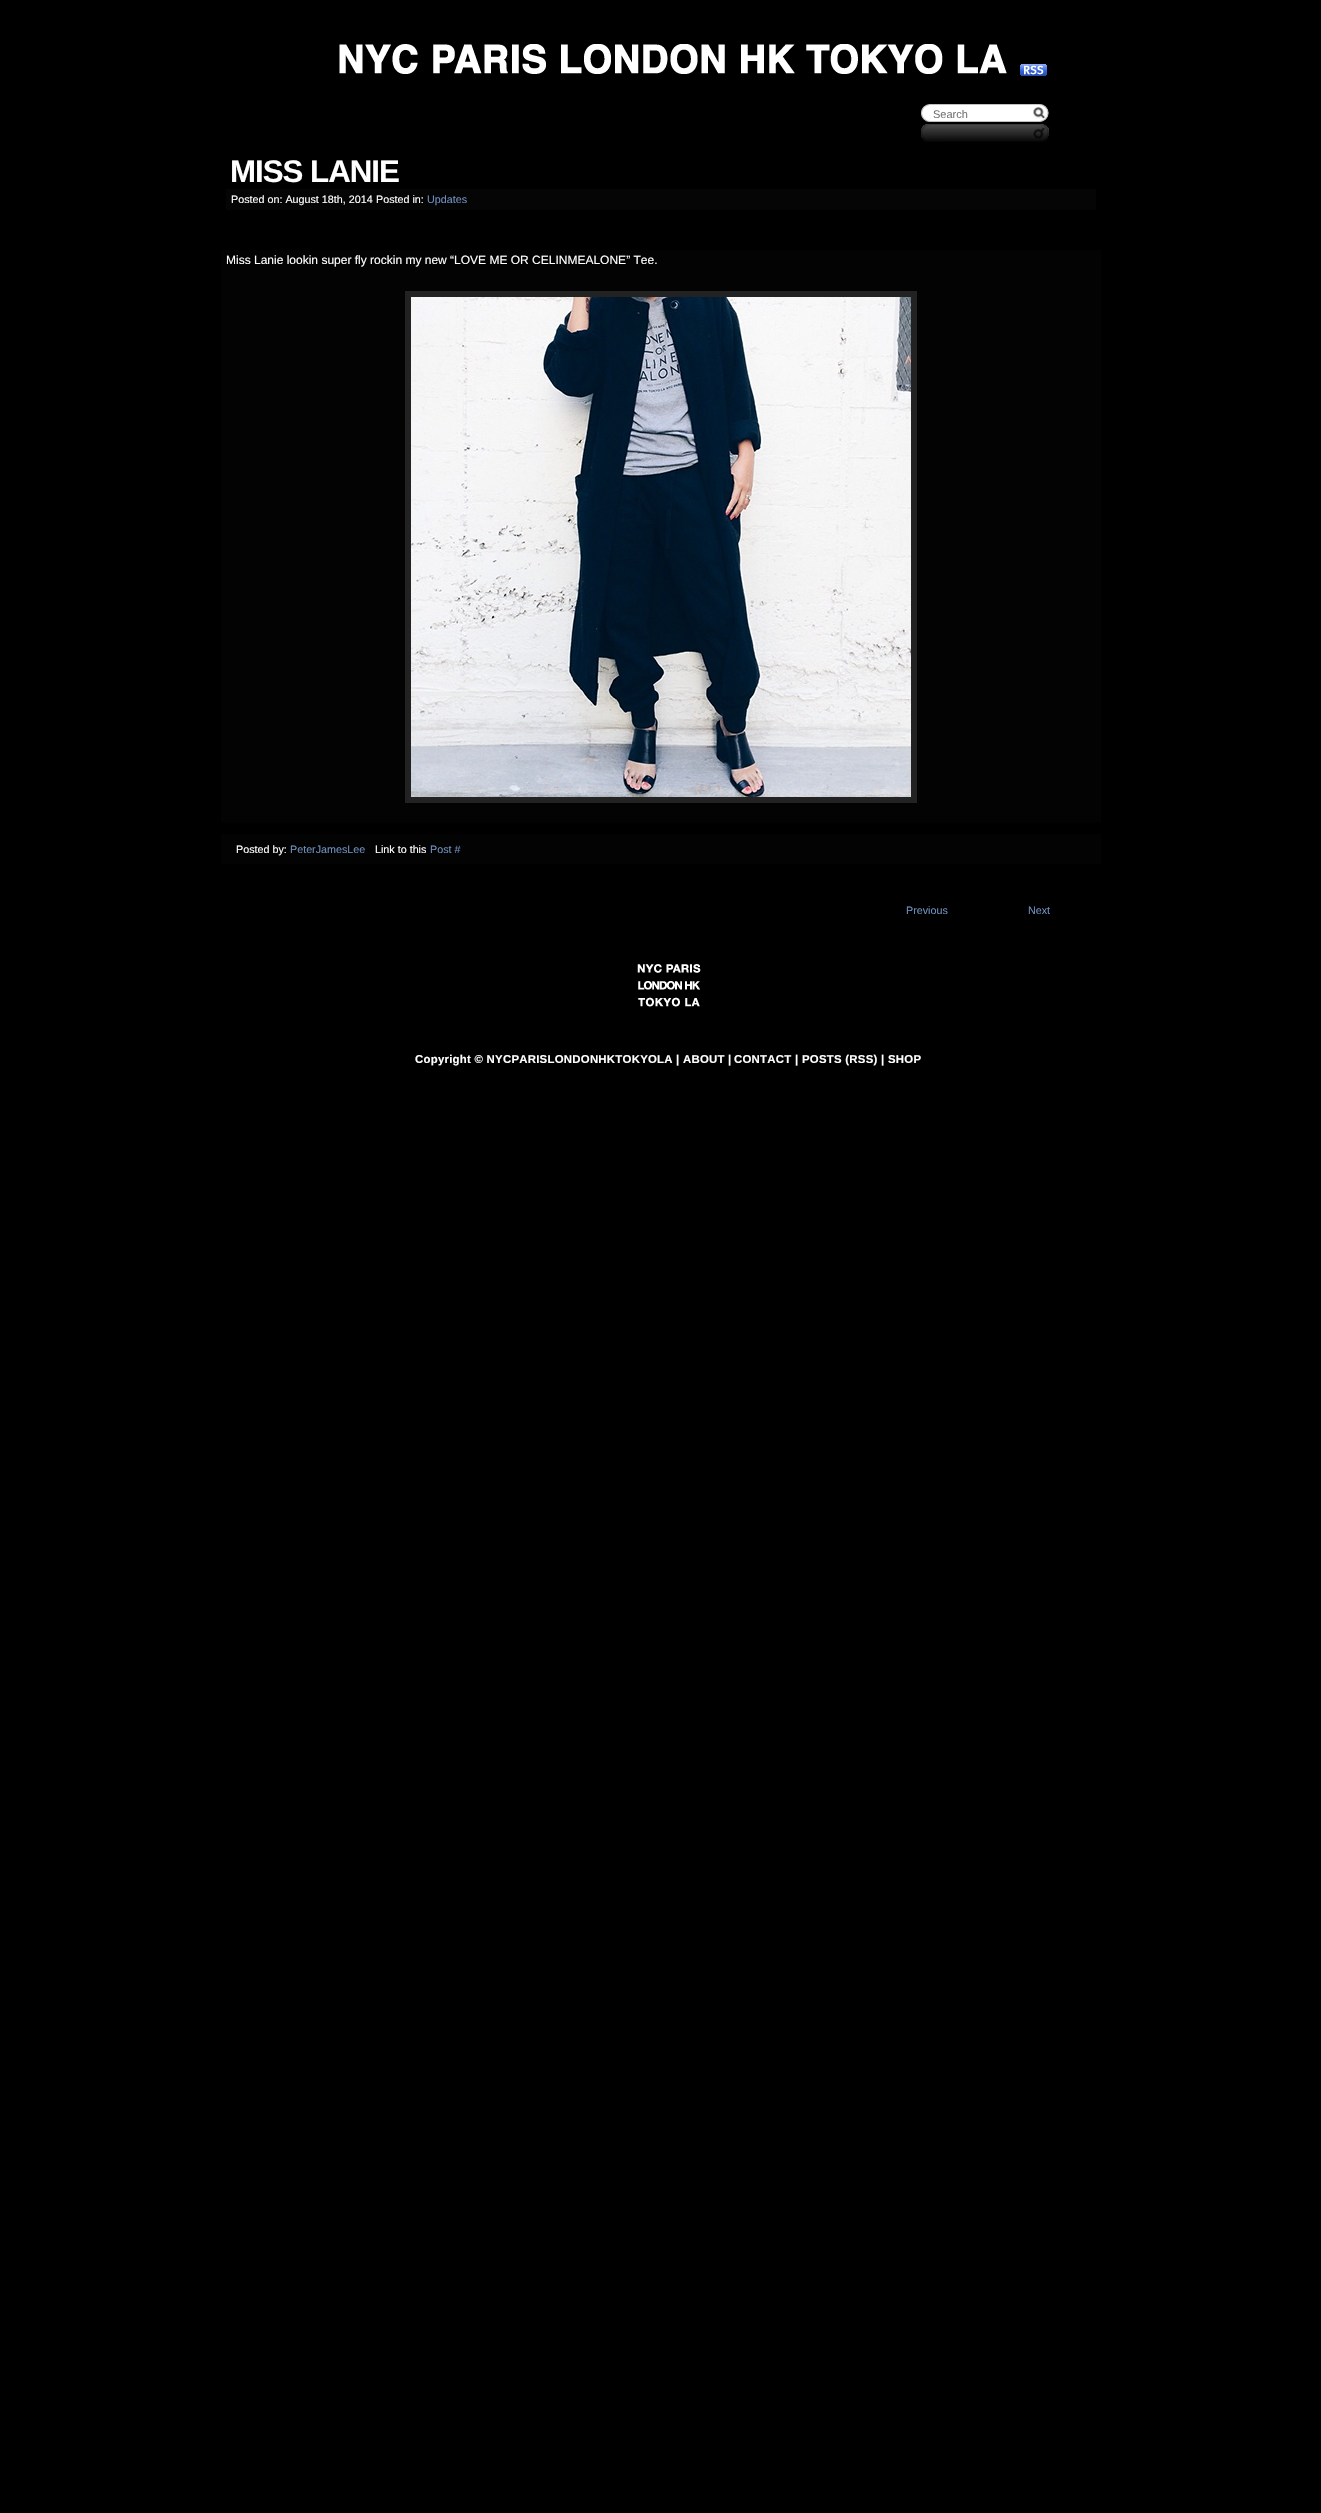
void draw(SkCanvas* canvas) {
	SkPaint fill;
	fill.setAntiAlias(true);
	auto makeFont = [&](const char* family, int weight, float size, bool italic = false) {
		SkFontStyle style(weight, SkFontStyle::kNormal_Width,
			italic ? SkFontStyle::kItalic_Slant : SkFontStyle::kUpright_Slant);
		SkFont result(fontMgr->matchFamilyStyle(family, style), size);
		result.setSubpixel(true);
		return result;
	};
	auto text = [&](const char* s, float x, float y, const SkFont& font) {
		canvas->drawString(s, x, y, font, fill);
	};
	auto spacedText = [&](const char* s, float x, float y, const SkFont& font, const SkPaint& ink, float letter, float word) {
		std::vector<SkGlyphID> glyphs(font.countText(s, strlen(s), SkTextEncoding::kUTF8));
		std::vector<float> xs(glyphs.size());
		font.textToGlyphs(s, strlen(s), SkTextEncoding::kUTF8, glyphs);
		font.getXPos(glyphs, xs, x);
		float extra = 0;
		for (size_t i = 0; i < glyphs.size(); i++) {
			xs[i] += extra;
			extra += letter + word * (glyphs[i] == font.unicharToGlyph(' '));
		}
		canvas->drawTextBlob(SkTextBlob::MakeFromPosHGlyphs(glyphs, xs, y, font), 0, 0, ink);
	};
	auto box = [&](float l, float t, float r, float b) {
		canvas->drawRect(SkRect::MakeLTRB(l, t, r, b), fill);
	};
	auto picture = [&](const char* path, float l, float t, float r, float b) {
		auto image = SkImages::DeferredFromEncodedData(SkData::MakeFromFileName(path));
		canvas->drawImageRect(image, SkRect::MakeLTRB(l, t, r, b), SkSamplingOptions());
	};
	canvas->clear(0xFF000000);
	picture("image0.png", 339, 44, 1007, 74);
	picture("image1.png", 1020, 64, 1047, 76);
	picture("image2.png", 921, 104, 931, 122);
	fill.setColor(0xFFFFFFFF);
	box(931, 105, 1031, 121);
	fill.setColor(0xFFC0C0C0);
	box(931, 104, 1031, 105);
	box(931, 121, 1031, 122);
	picture("image3.png", 1031, 104, 1049, 122);
	picture("image4.png", 921, 124, 1049, 142);
	fill.setColor(0xFF050505);
	box(226, 189, 1096, 210);
	fill.setColor(0xFF030303);
	box(221, 250, 1101, 823);
	fill.setStyle(SkPaint::kStroke_Style);
	fill.setStrokeWidth(6);
	fill.setColor(0xFF222222);
	canvas->drawRect(SkRect::MakeLTRB(408, 294, 914, 800), fill);
	picture("image5.png", 411, 297, 911, 797);
	fill.setStyle(SkPaint::kFill_Style);
	fill.setColor(0xFF030303);
	box(221, 834, 1101, 864);
	picture("image6.png", 637, 964, 701, 1007);
	auto font1 = makeFont("Liberation Sans", 400, 11);
	fill.setColor(0xFF757575);
	text("Search", 933, 118, font1);
	auto font2 = makeFont("Liberation Sans", 700, 31.25f);
	fill.setColor(0xFFFFFFFF);
	spacedText("MISS LANIE", 230, 182, font2, fill, -1, 0);
	auto font3 = makeFont("Liberation Sans", 400, 10.75f);
	text("Posted on: August 18th, 2014", 231, 203, font3);
	text("Posted in:", 376, 203, font3);
	fill.setColor(0xFF7090C0);
	text("Updates", 427, 203, font3);
	auto font4 = makeFont("Liberation Sans", 400, 12);
	fill.setColor(0xFFFFFFFF);
	text("Miss Lanie lookin super fly rockin my new “LOVE ME OR CELINMEALONE” Tee.", 226, 264, font4);
	text("Posted by:", 236, 853, font3);
	fill.setColor(0xFF7090C0);
	text("PeterJamesLee", 290, 853, font3);
	fill.setColor(0xFFFFFFFF);
	text("Link to this", 375, 853, font3);
	fill.setColor(0xFF7090C0);
	text("Post #", 430, 853, font3);
	text("Previous", 906, 914, font3);
	text("Next", 1028, 914, font3);
	auto font5 = makeFont("Liberation Sans", 700, 11.4f);
	fill.setColor(0xFFFFFFFF);
	spacedText("Copyright © NYCPARISLONDONHKTOKYOLA", 415, 1063, font5, fill, 0.25f, 0);
	spacedText("|", 676, 1063, font5, fill, 0.25f, 0);
	spacedText("ABOUT", 683, 1063, font5, fill, 0.25f, 0);
	spacedText("|", 728, 1063, font5, fill, 0.25f, 0);
	spacedText("CONTACT", 734, 1063, font5, fill, 0.25f, 0);
	spacedText("|", 795, 1063, font5, fill, 0.25f, 0);
	spacedText("POSTS (RSS)", 802, 1063, font5, fill, 0.25f, 0);
	spacedText("|", 881, 1063, font5, fill, 0.25f, 0);
	spacedText("SHOP", 888, 1063, font5, fill, 0.25f, 0);
}
